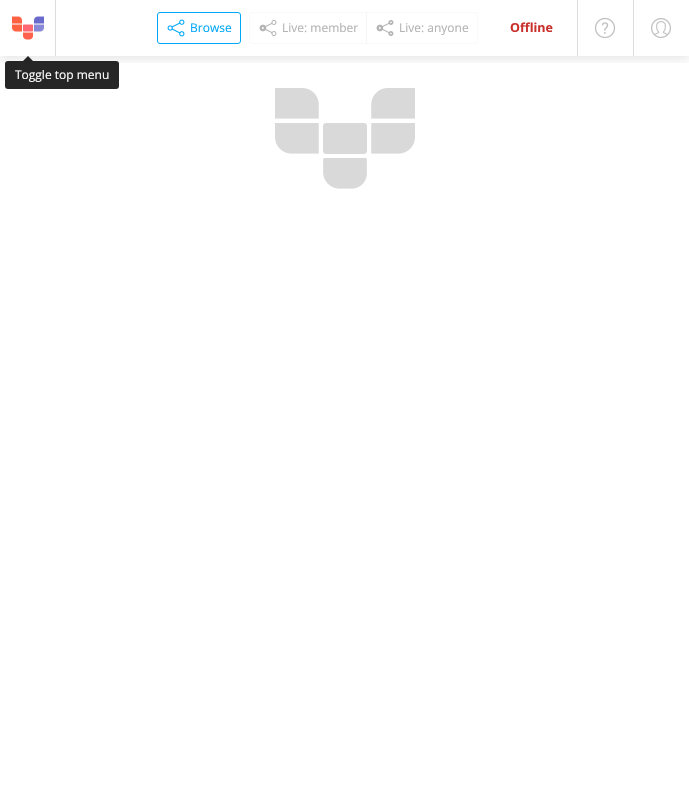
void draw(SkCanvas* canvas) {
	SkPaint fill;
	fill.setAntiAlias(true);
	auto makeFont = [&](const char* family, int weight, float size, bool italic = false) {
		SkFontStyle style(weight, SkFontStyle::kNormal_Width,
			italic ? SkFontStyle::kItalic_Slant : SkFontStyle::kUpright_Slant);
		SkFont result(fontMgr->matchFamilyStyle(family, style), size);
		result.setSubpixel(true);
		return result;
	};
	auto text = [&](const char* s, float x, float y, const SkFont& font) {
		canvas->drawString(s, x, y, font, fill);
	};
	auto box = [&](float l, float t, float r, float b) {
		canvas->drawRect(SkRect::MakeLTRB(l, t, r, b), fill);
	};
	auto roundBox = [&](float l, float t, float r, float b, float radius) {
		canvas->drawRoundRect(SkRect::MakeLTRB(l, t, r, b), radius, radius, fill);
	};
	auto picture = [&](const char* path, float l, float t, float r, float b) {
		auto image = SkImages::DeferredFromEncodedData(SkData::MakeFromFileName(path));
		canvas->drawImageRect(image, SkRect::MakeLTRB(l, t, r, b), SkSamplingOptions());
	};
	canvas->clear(0xFFFFFFFF);
	canvas->save();
	canvas->clipRect(SkRect::MakeLTRB(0, 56, 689, 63));
	fill.setColor(0x1A000000);
	fill.setMaskFilter(SkMaskFilter::MakeBlur(kNormal_SkBlurStyle, 5));
	canvas->drawRect(SkRect::MakeLTRB(0, 3, 689, 59), fill);
	fill.setMaskFilter(nullptr);
	canvas->restore();
	picture("image0.png", 12, 16, 44, 40);
	fill.setColor(0xFFDBDDDF);
	box(55, 0, 56, 56);
	fill.setStyle(SkPaint::kStroke_Style);
	fill.setStrokeWidth(1);
	fill.setColor(0xFF00A7F7);
	canvas->drawRoundRect(SkRect::MakeLTRB(157.5f, 12.5f, 240.5f, 43.5f), 2.5f, 2.5f, fill);
	picture("image1.png", 167, 19, 185, 37);
	fill.setColor(0xFFF9F9F9);
	canvas->drawPath(SkPathBuilder().moveTo(252, 12.5f).lineTo(366.5f, 12.5f).lineTo(366.5f, 43.5f).lineTo(252, 43.5f).cubicTo(250.5f, 43.5f, 249.5f, 42.5f, 249.5f, 41).lineTo(249.5f, 15).cubicTo(249.5f, 13.5f, 250.5f, 12.5f, 252, 12.5f).close().detach(), fill);
	picture("image2.png", 259, 20, 277, 36);
	fill.setColor(0x59EEEEEE);
	canvas->drawPath(SkPathBuilder().moveTo(366.5f, 12.5f).lineTo(475, 12.5f).cubicTo(476.5f, 12.5f, 477.5f, 13.5f, 477.5f, 15).lineTo(477.5f, 41).cubicTo(477.5f, 42.5f, 476.5f, 43.5f, 475, 43.5f).lineTo(366.5f, 43.5f).close().detach(), fill);
	picture("image3.png", 376, 20, 394, 36);
	fill.setStyle(SkPaint::kFill_Style);
	fill.setColor(0xFFDBDDDF);
	box(577, 0, 578, 56);
	picture("image4.png", 594, 17, 616, 39);
	box(633, 0, 634, 56);
	picture("image5.png", 651, 18, 671, 38);
	fill.setColor(0xD9000000);
	roundBox(5, 61, 119, 89, 3);
	canvas->drawPath(SkPathBuilder().moveTo(33, 61).lineTo(23, 61).lineTo(28, 56).close().detach(), fill);
	picture("image6.png", 275, 88, 415, 189);
	auto font1 = makeFont("Open Sans", 400, 12);
	fill.setColor(0xFF00A7F7);
	text("Browse", 190, 32, font1);
	fill.setColor(0xFFB4B3B3);
	text("Live: member", 282, 32, font1);
	text("Live: anyone", 399, 32, font1);
	auto font2 = makeFont("Open Sans", 700, 12.5f);
	fill.setColor(0xFFC9302C);
	text("Offline", 510, 32, font2);
	fill.setColor(0xFFFFFFFF);
	text("Toggle top menu", 15, 79, font1);
}
